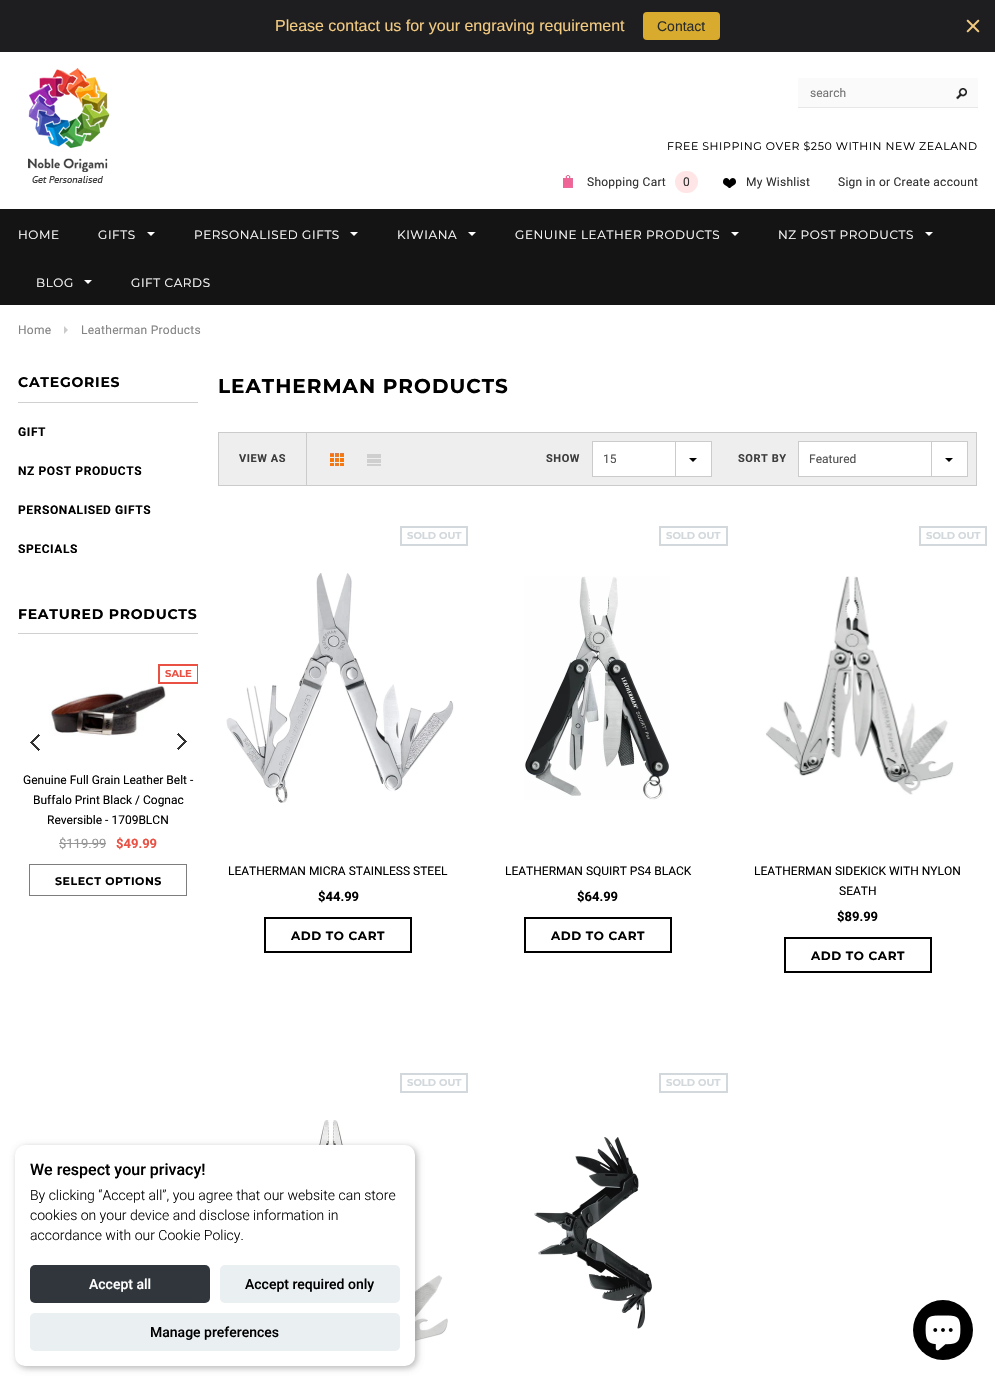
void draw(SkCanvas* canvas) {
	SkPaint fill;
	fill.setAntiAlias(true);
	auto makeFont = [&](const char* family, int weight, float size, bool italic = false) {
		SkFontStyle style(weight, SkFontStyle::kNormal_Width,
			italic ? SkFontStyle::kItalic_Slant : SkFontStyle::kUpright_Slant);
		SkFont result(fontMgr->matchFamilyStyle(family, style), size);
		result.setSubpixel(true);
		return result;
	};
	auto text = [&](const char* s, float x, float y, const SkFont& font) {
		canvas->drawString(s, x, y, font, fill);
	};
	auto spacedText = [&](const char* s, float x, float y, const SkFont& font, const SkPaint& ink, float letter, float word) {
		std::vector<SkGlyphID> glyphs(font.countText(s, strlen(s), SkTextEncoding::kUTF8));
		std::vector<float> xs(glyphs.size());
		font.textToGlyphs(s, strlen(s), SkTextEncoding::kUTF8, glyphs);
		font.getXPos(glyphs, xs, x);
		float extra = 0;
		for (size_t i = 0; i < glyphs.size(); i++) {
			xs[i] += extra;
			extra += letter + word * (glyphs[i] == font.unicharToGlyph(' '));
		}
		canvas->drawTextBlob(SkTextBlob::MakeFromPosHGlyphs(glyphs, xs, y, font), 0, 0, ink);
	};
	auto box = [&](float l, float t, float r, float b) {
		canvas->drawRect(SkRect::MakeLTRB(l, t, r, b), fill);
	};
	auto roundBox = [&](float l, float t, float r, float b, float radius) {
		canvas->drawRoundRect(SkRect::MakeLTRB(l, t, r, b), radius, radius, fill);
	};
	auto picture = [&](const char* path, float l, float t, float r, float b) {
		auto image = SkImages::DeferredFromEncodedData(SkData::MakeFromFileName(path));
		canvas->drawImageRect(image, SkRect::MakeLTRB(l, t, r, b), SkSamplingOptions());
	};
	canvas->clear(0xFFFFFFFF);
	fill.setColor(0xFF1E1E20);
	box(0, 0, 995, 52);
	fill.setColor(0xFFD8AB2E);
	roundBox(643, 12, 720, 40, 4);
	picture("image0.png", 966, 19, 980, 33);
	fill.setColor(0xFFFAFAFA);
	box(798, 78, 978, 107);
	fill.setColor(0xFFE7E7E7);
	box(798, 107, 978, 108);
	picture("image1.png", 956, 88, 967, 100);
	picture("image2.png", 28, 68, 110, 183);
	picture("image3.png", 563, 175, 573, 188);
	fill.setColor(0xFFFFE5E5);
	roundBox(675, 171, 698, 193, 11);
	picture("image4.png", 723, 178, 736, 188);
	fill.setColor(0xFF141414);
	box(0, 209, 995, 305);
	fill.setColor(0xFFFFFFFF);
	canvas->drawPath(SkPathBuilder().moveTo(147, 232).lineTo(155, 232).lineTo(151, 236).close().detach(), fill);
	canvas->drawPath(SkPathBuilder().moveTo(350, 232).lineTo(358, 232).lineTo(354, 236).close().detach(), fill);
	canvas->drawPath(SkPathBuilder().moveTo(468, 232).lineTo(476, 232).lineTo(472, 236).close().detach(), fill);
	canvas->drawPath(SkPathBuilder().moveTo(731, 232).lineTo(739, 232).lineTo(735, 236).close().detach(), fill);
	canvas->drawPath(SkPathBuilder().moveTo(925, 232).lineTo(933, 232).lineTo(929, 236).close().detach(), fill);
	canvas->drawPath(SkPathBuilder().moveTo(84, 280).lineTo(92, 280).lineTo(88, 284).close().detach(), fill);
	fill.setColor(0xFFCBCBCB);
	canvas->drawPath(SkPathBuilder().moveTo(64, 334).lineTo(64, 326).lineTo(68, 330).close().detach(), fill);
	fill.setColor(0xFFD0D0D0);
	box(18, 402, 198, 403);
	box(18, 633, 198, 634);
	canvas->save();
	canvas->clipRect(SkRect::MakeLTRB(18, 664, 198, 965));
	fill.setStyle(SkPaint::kStroke_Style);
	fill.setStrokeWidth(2);
	fill.setColor(0xFFE95144);
	canvas->drawRect(SkRect::MakeLTRB(159, 665, 198, 683), fill);
	canvas->restore();
	picture("image5.png", 49, 685, 166, 736);
	fill.setStyle(SkPaint::kFill_Style);
	fill.setColor(0xFF969696);
	box(59, 843, 106, 844);
	fill.setStyle(SkPaint::kStroke_Style);
	fill.setStrokeWidth(1);
	fill.setColor(0xFF7D7D7D);
	canvas->drawRect(SkRect::MakeLTRB(29.5f, 864.5f, 186.5f, 895.5f), fill);
	picture("image6.png", 30, 734, 40, 751);
	picture("image7.png", 177, 733, 187, 750);
	fill.setStyle(SkPaint::kFill_Style);
	fill.setColor(0xFFEEEEEE);
	canvas->drawRect(SkRect::MakeLTRB(218.5f, 432.5f, 976.5f, 485.5f), fill);
	fill.setStyle(SkPaint::kStroke_Style);
	fill.setColor(0xFFCBCBCB);
	canvas->drawRect(SkRect::MakeLTRB(218.5f, 432.5f, 976.5f, 485.5f), fill);
	fill.setStyle(SkPaint::kFill_Style);
	box(306, 433, 307, 485);
	picture("image8.png", 330, 453, 344, 466);
	picture("image9.png", 367, 454, 381, 466);
	fill.setColor(0xFFFFFFFF);
	canvas->drawRect(SkRect::MakeLTRB(592.5f, 441.5f, 711.5f, 476.5f), fill);
	fill.setStyle(SkPaint::kStroke_Style);
	fill.setColor(0xFFCBCBCB);
	canvas->drawRect(SkRect::MakeLTRB(592.5f, 441.5f, 711.5f, 476.5f), fill);
	fill.setStyle(SkPaint::kFill_Style);
	box(675, 442, 676, 476);
	fill.setColor(0xFF000000);
	canvas->drawPath(SkPathBuilder().moveTo(689, 458).lineTo(697, 458).lineTo(693, 462).close().detach(), fill);
	fill.setColor(0xFFFFFFFF);
	canvas->drawRect(SkRect::MakeLTRB(798.5f, 441.5f, 967.5f, 476.5f), fill);
	fill.setStyle(SkPaint::kStroke_Style);
	fill.setColor(0xFFCBCBCB);
	canvas->drawRect(SkRect::MakeLTRB(798.5f, 441.5f, 967.5f, 476.5f), fill);
	fill.setStyle(SkPaint::kFill_Style);
	box(931, 442, 932, 476);
	fill.setColor(0xFF000000);
	canvas->drawPath(SkPathBuilder().moveTo(945, 458).lineTo(953, 458).lineTo(949, 462).close().detach(), fill);
	fill.setStyle(SkPaint::kStroke_Style);
	fill.setStrokeWidth(2);
	fill.setColor(0xFFD2D8DB);
	canvas->drawRect(SkRect::MakeLTRB(401, 527, 467, 545), fill);
	picture("image10.png", 226, 573, 454, 803);
	fill.setColor(0xFF000000);
	canvas->drawRect(SkRect::MakeLTRB(265, 918, 411, 952), fill);
	fill.setColor(0xFFD2D8DB);
	canvas->drawRect(SkRect::MakeLTRB(660, 527, 727, 545), fill);
	picture("image11.png", 524, 576, 670, 800);
	fill.setColor(0xFF000000);
	canvas->drawRect(SkRect::MakeLTRB(525, 918, 671, 952), fill);
	fill.setColor(0xFFD2D8DB);
	canvas->drawRect(SkRect::MakeLTRB(920, 527, 986, 545), fill);
	picture("image12.png", 766, 576, 954, 795);
	fill.setColor(0xFF000000);
	canvas->drawRect(SkRect::MakeLTRB(785, 938, 931, 972), fill);
	fill.setColor(0xFFD2D8DB);
	canvas->drawRect(SkRect::MakeLTRB(401, 1074, 467, 1092), fill);
	picture("image13.png", 236, 1120, 448, 1348);
	canvas->drawRect(SkRect::MakeLTRB(660, 1074, 727, 1092), fill);
	picture("image14.png", 534, 1137, 652, 1329);
	fill.setStyle(SkPaint::kFill_Style);
	fill.setColor(0x26000000);
	fill.setMaskFilter(SkMaskFilter::MakeBlur(kNormal_SkBlurStyle, 3));
	canvas->drawRoundRect(SkRect::MakeLTRB(17, 1147, 417, 1368), 10, 10, fill);
	fill.setMaskFilter(nullptr);
	fill.setMaskFilter(SkMaskFilter::MakeBlur(kNormal_SkBlurStyle, 3));
	canvas->drawRoundRect(SkRect::MakeLTRB(17, 1147, 417, 1368), 10, 10, fill);
	fill.setMaskFilter(nullptr);
	fill.setColor(0xFFFFFFFF);
	roundBox(15, 1145, 415, 1366, 10);
	fill.setColor(0xFF30363C);
	roundBox(30, 1265, 210, 1303, 5);
	fill.setColor(0xFFEAEFF2);
	roundBox(220, 1265, 400, 1303, 5);
	roundBox(30, 1313, 400, 1351, 5);
	fill.setColor(0xFF000000);
	canvas->drawCircle(943, 1330, 30, fill);
	picture("image15.png", 925, 1315, 961, 1351);
	auto font1 = makeFont("Liberation Sans", 400, 16);
	fill.setColor(0xFFF2CA80);
	text("Please contact us for your engraving requirement", 275, 31, font1);
	auto font2 = makeFont("Liberation Sans", 400, 14);
	fill.setColor(0xFF2A2C2B);
	text("Contact", 657, 31, font2);
	auto font3 = makeFont("Roboto", 400, 12);
	fill.setColor(0xFF757575);
	text("search", 810, 97, font3);
	auto font4 = makeFont("Montserrat", 400, 11);
	fill.setColor(0xFF000000);
	spacedText("FREE SHIPPING OVER $250 WITHIN NEW ZEALAND", 667, 150, font4, fill, 0.55f, 0);
	fill.setColor(0xFF323232);
	spacedText("Shopping Cart", 587, 186, font3, fill, 0.25f, 0);
	spacedText("0", 683, 186, font3, fill, 0.25f, 0);
	spacedText("My Wishlist", 746, 186, font3, fill, 0.25f, 0);
	spacedText("Sign in or Create account", 838, 186, font3, fill, 0.25f, 0);
	auto font5 = makeFont("Montserrat", 400, 12);
	fill.setColor(0xFFFFFFFF);
	spacedText("HOME", 18, 239, font5, fill, 0.6f, 0);
	spacedText("GIFTS", 98, 239, font5, fill, 0.6f, 0);
	spacedText("PERSONALISED GIFTS", 194, 239, font5, fill, 0.6f, 0);
	spacedText("KIWIANA", 397, 239, font5, fill, 0.6f, 0);
	spacedText("GENUINE LEATHER PRODUCTS", 515, 239, font5, fill, 0.6f, 0);
	spacedText("NZ POST PRODUCTS", 778, 239, font5, fill, 0.6f, 0);
	spacedText("BLOG", 36, 287, font5, fill, 0.6f, 0);
	spacedText("GIFT CARDS", 131, 287, font5, fill, 0.6f, 0);
	fill.setColor(0xFF848484);
	spacedText("Home", 18, 334, font3, fill, 0.25f, 0);
	spacedText("Leatherman Products", 81, 334, font3, fill, 0.25f, 0);
	auto font6 = makeFont("Montserrat", 700, 14);
	fill.setColor(0xFF000000);
	spacedText("CATEGORIES", 18, 387, font6, fill, 0.75f, 0);
	auto font7 = makeFont("Roboto", 700, 12);
	spacedText("GIFT", 18, 436, font7, fill, 0.6f, 0);
	spacedText("NZ POST PRODUCTS", 18, 475, font7, fill, 0.6f, 0);
	spacedText("PERSONALISED GIFTS", 18, 514, font7, fill, 0.6f, 0);
	spacedText("SPECIALS", 18, 553, font7, fill, 0.6f, 0);
	spacedText("FEATURED PRODUCTS", 18, 619, font6, fill, 0.75f, 0);
	auto font8 = makeFont("Montserrat", 700, 10);
	fill.setColor(0xFFE95144);
	text("SALE", 165, 677, font8);
	fill.setColor(0xFF000000);
	text("Genuine Full Grain Leather Belt -", 23, 784, font3);
	text("Buffalo Print Black / Cognac", 33, 804, font3);
	text("Reversible - 1709BLCN", 47, 824, font3);
	auto font9 = makeFont("Roboto", 400, 13);
	fill.setColor(0xFF969696);
	text("$119.99", 59, 848, font9);
	auto font10 = makeFont("Roboto", 700, 13);
	fill.setColor(0xFFE95144);
	text("$49.99", 116, 848, font10);
	auto font11 = makeFont("Montserrat", 700, 11);
	fill.setColor(0xFF000000);
	spacedText("SELECT OPTIONS", 55, 885, font11, fill, 0.55f, 0);
	auto font12 = makeFont("Montserrat", 700, 20);
	spacedText("LEATHERMAN PRODUCTS", 218, 393, font12, fill, 1, 0);
	auto font13 = makeFont("Roboto", 700, 11);
	fill.setColor(0xFF3C3C3C);
	spacedText("VIEW AS", 239, 462, font13, fill, 0.55f, 0);
	spacedText("SHOW", 546, 462, font13, fill, 0.55f, 0);
	fill.setColor(0xFF505050);
	text("15", 603, 463, font3);
	fill.setColor(0xFF3C3C3C);
	spacedText("SORT BY", 738, 462, font13, fill, 0.55f, 0);
	fill.setColor(0xFF505050);
	text("Featured", 809, 463, font3);
	fill.setColor(0xFFD2D8DB);
	text("SOLD OUT", 407, 539, font8);
	fill.setColor(0xFF000000);
	text("LEATHERMAN MICRA STAINLESS STEEL", 228, 875, font3);
	text("$44.99", 318, 901, font10);
	auto font14 = makeFont("Montserrat", 700, 12);
	spacedText("ADD TO CART", 291, 940, font14, fill, 0.6f, 0);
	fill.setColor(0xFFD2D8DB);
	text("SOLD OUT", 666, 539, font8);
	fill.setColor(0xFF000000);
	text("LEATHERMAN SQUIRT PS4 BLACK", 505, 875, font3);
	text("$64.99", 577, 901, font10);
	spacedText("ADD TO CART", 551, 940, font14, fill, 0.6f, 0);
	fill.setColor(0xFFD2D8DB);
	text("SOLD OUT", 926, 539, font8);
	fill.setColor(0xFF000000);
	text("LEATHERMAN SIDEKICK WITH NYLON", 754, 875, font3);
	text("SEATH", 839, 895, font3);
	text("$89.99", 837, 921, font10);
	spacedText("ADD TO CART", 811, 960, font14, fill, 0.6f, 0);
	fill.setColor(0xFFD2D8DB);
	text("SOLD OUT", 407, 1086, font8);
	text("SOLD OUT", 666, 1086, font8);
	auto font15 = makeFont("Roboto", 500, 16);
	fill.setColor(0xFF000000);
	text("We respect your privacy!", 30, 1175, font15);
	auto font16 = makeFont("Roboto", 300, 14);
	text("By clicking “Accept all”, you agree that our website can store", 30, 1200, font16);
	text("cookies on your device and disclose information in", 30, 1220, font16);
	text("accordance with our Cookie Policy.", 30, 1240, font16);
	auto font17 = makeFont("Roboto", 500, 14);
	fill.setColor(0xFFFFFFFF);
	text("Accept all", 89, 1289, font17);
	fill.setColor(0xFF000000);
	text("Accept required only", 245, 1289, font17);
	text("Manage preferences", 150, 1337, font17);
}
